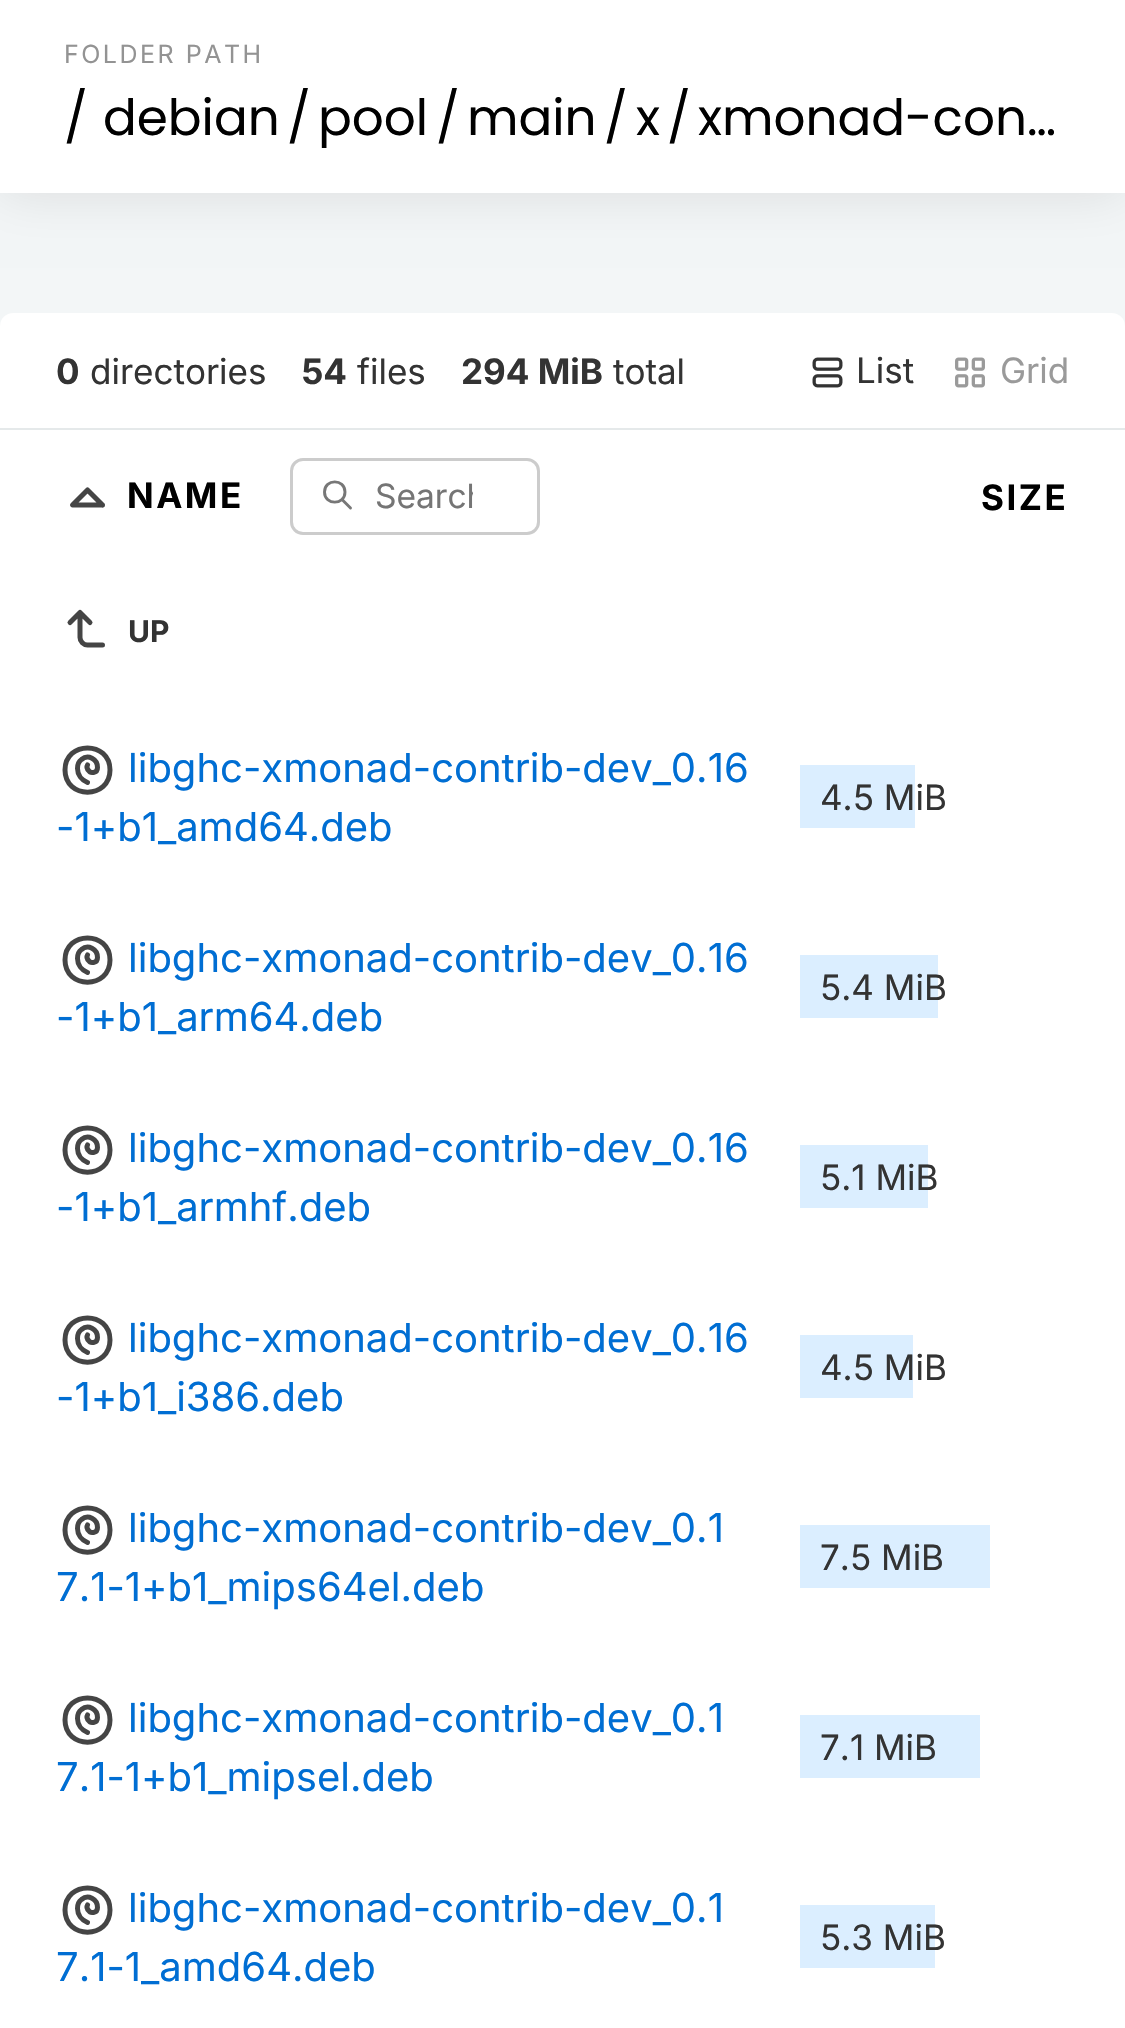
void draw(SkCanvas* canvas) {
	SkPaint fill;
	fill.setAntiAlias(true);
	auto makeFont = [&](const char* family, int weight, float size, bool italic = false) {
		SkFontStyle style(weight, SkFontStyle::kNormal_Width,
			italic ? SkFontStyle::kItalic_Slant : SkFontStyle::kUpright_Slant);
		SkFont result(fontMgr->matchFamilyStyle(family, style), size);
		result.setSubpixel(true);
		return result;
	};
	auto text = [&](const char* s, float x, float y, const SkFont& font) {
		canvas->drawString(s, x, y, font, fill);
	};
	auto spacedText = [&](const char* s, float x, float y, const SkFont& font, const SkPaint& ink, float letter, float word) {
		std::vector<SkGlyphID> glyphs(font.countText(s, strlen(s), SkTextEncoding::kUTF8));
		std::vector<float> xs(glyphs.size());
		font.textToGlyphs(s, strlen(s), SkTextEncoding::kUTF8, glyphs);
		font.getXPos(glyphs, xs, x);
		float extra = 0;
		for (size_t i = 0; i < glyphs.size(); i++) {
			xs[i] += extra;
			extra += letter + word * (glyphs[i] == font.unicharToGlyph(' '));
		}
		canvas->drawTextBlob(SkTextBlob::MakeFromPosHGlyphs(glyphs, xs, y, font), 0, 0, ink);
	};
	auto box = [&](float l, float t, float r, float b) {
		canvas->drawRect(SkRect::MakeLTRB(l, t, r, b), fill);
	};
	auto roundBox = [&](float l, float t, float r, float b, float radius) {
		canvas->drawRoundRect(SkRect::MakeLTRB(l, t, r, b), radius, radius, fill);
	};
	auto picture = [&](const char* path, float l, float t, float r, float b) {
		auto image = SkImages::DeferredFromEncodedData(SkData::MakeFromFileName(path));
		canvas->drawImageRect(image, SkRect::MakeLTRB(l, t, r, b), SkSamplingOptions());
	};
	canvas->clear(0xFFF3F6F7);
	fill.setColor(0x1A000000);
	fill.setMaskFilter(SkMaskFilter::MakeBlur(kNormal_SkBlurStyle, 25));
	canvas->drawRect(SkRect::MakeLTRB(0, 0, 1125, 193), fill);
	fill.setMaskFilter(nullptr);
	fill.setColor(0xFFFFFFFF);
	box(0, 0, 1125, 193);
	roundBox(0, 313, 1125, 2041, 13);
	fill.setColor(0xFFE5E9EA);
	box(0, 428, 1125, 430);
	picture("image0.png", 812, 357, 843, 388);
	picture("image1.png", 955, 357, 985, 388);
	fill.setStyle(SkPaint::kStroke_Style);
	fill.setStrokeWidth(5);
	fill.setStrokeCap(SkPaint::kRound_Cap);
	fill.setStrokeJoin(SkPaint::kRound_Join);
	fill.setColor(0xFF454545);
	canvas->drawPath(SkPathBuilder().moveTo(102.5f, 505).lineTo(87.5f, 490).lineTo(72.5f, 505).lineTo(102.5f, 505).detach(), fill);
	fill.setStrokeWidth(2.9f);
	fill.setColor(0xFF777777);
	canvas->drawPath(SkPathBuilder().moveTo(324.5f, 492).cubicTo(324.5f, 505.5f, 345, 505.5f, 345, 492).cubicTo(345, 478.5f, 324.5f, 478.5f, 324.5f, 492).moveTo(350.5f, 508).lineTo(342, 499.5f).detach(), fill);
	fill.setStrokeWidth(3);
	fill.setStrokeCap(SkPaint::kButt_Cap);
	fill.setStrokeJoin(SkPaint::kMiter_Join);
	fill.setColor(0xFFCCCCCC);
	canvas->drawRoundRect(SkRect::MakeLTRB(291.5f, 459.5f, 538.5f, 533.5f), 11.5f, 11.5f, fill);
	fill.setStrokeWidth(5);
	fill.setStrokeCap(SkPaint::kRound_Cap);
	fill.setStrokeJoin(SkPaint::kRound_Join);
	fill.setColor(0xFF454545);
	canvas->drawPath(SkPathBuilder().moveTo(102.5f, 645).lineTo(87.5f, 645).cubicTo(83.5f, 645, 80, 641.5f, 80, 637.5f).lineTo(80, 612.5f).lineTo(70, 622.5f).moveTo(90, 622.5f).lineTo(80, 612.5f).detach(), fill);
	canvas->drawPath(SkPathBuilder().moveTo(87.5f, 782.5f).cubicTo(81.5f, 780, 77.5f, 774.5f, 77.5f, 768.5f).cubicTo(77.5f, 763, 80, 760.5f, 81.5f, 759.5f).cubicTo(88, 754, 97.5f, 759, 97.5f, 767.5f).cubicTo(97.5f, 774, 90, 773, 89, 771).cubicTo(87.5f, 769.5f, 86, 767.5f, 87.5f, 765).moveTo(65, 770).cubicTo(65, 799.5f, 110, 799.5f, 110, 770).cubicTo(110, 740.5f, 65, 740.5f, 65, 770).detach(), fill);
	fill.setStyle(SkPaint::kFill_Style);
	fill.setColor(0xFFDBEEFF);
	box(800, 765, 915, 828);
	fill.setStyle(SkPaint::kStroke_Style);
	fill.setColor(0xFF454545);
	canvas->drawPath(SkPathBuilder().moveTo(87.5f, 972.5f).cubicTo(81.5f, 970, 77.5f, 964.5f, 77.5f, 958.5f).cubicTo(77.5f, 953, 80, 950.5f, 81.5f, 949.5f).cubicTo(88, 944, 97.5f, 949, 97.5f, 957.5f).cubicTo(97.5f, 964, 90, 963, 89, 961).cubicTo(87.5f, 959.5f, 86, 957.5f, 87.5f, 955).moveTo(65, 960).cubicTo(65, 989.5f, 110, 989.5f, 110, 960).cubicTo(110, 930.5f, 65, 930.5f, 65, 960).detach(), fill);
	fill.setStyle(SkPaint::kFill_Style);
	fill.setColor(0xFFDBEEFF);
	box(800, 955, 938, 1018);
	fill.setStyle(SkPaint::kStroke_Style);
	fill.setColor(0xFF454545);
	canvas->drawPath(SkPathBuilder().moveTo(87.5f, 1162.5f).cubicTo(81.5f, 1160, 77.5f, 1154.5f, 77.5f, 1148.5f).cubicTo(77.5f, 1143, 80, 1140.5f, 81.5f, 1139.5f).cubicTo(88, 1134, 97.5f, 1139, 97.5f, 1147.5f).cubicTo(97.5f, 1154, 90, 1153, 89, 1151).cubicTo(87.5f, 1149.5f, 86, 1147.5f, 87.5f, 1145).moveTo(65, 1150).cubicTo(65, 1179.5f, 110, 1179.5f, 110, 1150).cubicTo(110, 1120.5f, 65, 1120.5f, 65, 1150).detach(), fill);
	fill.setStyle(SkPaint::kFill_Style);
	fill.setColor(0xFFDBEEFF);
	box(800, 1145, 928, 1208);
	fill.setStyle(SkPaint::kStroke_Style);
	fill.setColor(0xFF454545);
	canvas->drawPath(SkPathBuilder().moveTo(87.5f, 1352.5f).cubicTo(81.5f, 1350, 77.5f, 1344.5f, 77.5f, 1338.5f).cubicTo(77.5f, 1333, 80, 1330.5f, 81.5f, 1329.5f).cubicTo(88, 1324, 97.5f, 1329, 97.5f, 1337.5f).cubicTo(97.5f, 1344, 90, 1343, 89, 1341).cubicTo(87.5f, 1339.5f, 86, 1337.5f, 87.5f, 1335).moveTo(65, 1340).cubicTo(65, 1369.5f, 110, 1369.5f, 110, 1340).cubicTo(110, 1310.5f, 65, 1310.5f, 65, 1340).detach(), fill);
	fill.setStyle(SkPaint::kFill_Style);
	fill.setColor(0xFFDBEEFF);
	box(800, 1335, 913, 1398);
	fill.setStyle(SkPaint::kStroke_Style);
	fill.setColor(0xFF454545);
	canvas->drawPath(SkPathBuilder().moveTo(87.5f, 1542.5f).cubicTo(81.5f, 1540, 77.5f, 1534.5f, 77.5f, 1528.5f).cubicTo(77.5f, 1523, 80, 1520.5f, 81.5f, 1519.5f).cubicTo(88, 1514, 97.5f, 1519, 97.5f, 1527.5f).cubicTo(97.5f, 1534, 90, 1533, 89, 1531).cubicTo(87.5f, 1529.5f, 86, 1527.5f, 87.5f, 1525).moveTo(65, 1530).cubicTo(65, 1559.5f, 110, 1559.5f, 110, 1530).cubicTo(110, 1500.5f, 65, 1500.5f, 65, 1530).detach(), fill);
	fill.setStyle(SkPaint::kFill_Style);
	fill.setColor(0xFFDBEEFF);
	box(800, 1525, 990, 1588);
	fill.setStyle(SkPaint::kStroke_Style);
	fill.setColor(0xFF454545);
	canvas->drawPath(SkPathBuilder().moveTo(87.5f, 1732.5f).cubicTo(81.5f, 1730, 77.5f, 1724.5f, 77.5f, 1718.5f).cubicTo(77.5f, 1713, 80, 1710.5f, 81.5f, 1709.5f).cubicTo(88, 1704, 97.5f, 1709, 97.5f, 1717.5f).cubicTo(97.5f, 1724, 90, 1723, 89, 1721).cubicTo(87.5f, 1719.5f, 86, 1717.5f, 87.5f, 1715).moveTo(65, 1720).cubicTo(65, 1749.5f, 110, 1749.5f, 110, 1720).cubicTo(110, 1690.5f, 65, 1690.5f, 65, 1720).detach(), fill);
	fill.setStyle(SkPaint::kFill_Style);
	fill.setColor(0xFFDBEEFF);
	box(800, 1715, 980, 1778);
	fill.setStyle(SkPaint::kStroke_Style);
	fill.setColor(0xFF454545);
	canvas->drawPath(SkPathBuilder().moveTo(87.5f, 1922.5f).cubicTo(81.5f, 1920, 77.5f, 1914.5f, 77.5f, 1908.5f).cubicTo(77.5f, 1903, 80, 1900.5f, 81.5f, 1899.5f).cubicTo(88, 1894, 97.5f, 1899, 97.5f, 1907.5f).cubicTo(97.5f, 1914, 90, 1913, 89, 1911).cubicTo(87.5f, 1909.5f, 86, 1907.5f, 87.5f, 1905).moveTo(65, 1910).cubicTo(65, 1939.5f, 110, 1939.5f, 110, 1910).cubicTo(110, 1880.5f, 65, 1880.5f, 65, 1910).detach(), fill);
	fill.setStyle(SkPaint::kFill_Style);
	fill.setColor(0xFFDBEEFF);
	box(800, 1905, 935, 1968);
	auto font1 = makeFont("Inter", 400, 25);
	fill.setColor(0xFF939393);
	spacedText("FOLDER PATH", 64, 63, font1, fill, 2.5f, 0);
	auto font2 = makeFont("Poppins", 400, 50);
	fill.setColor(0xFF000000);
	text("/", 64, 135, font2);
	text("debian", 103, 135, font2);
	text("/", 287, 135, font2);
	text("pool", 318, 135, font2);
	text("/", 436, 135, font2);
	text("main", 467, 135, font2);
	text("/", 604, 135, font2);
	text("x", 636, 135, font2);
	text("/", 667, 135, font2);
	text("xmonad-con…", 698, 135, font2);
	auto font3 = makeFont("Inter", 700, 35);
	fill.setColor(0xFF333333);
	text("0", 56, 384, font3);
	auto font4 = makeFont("Inter", 400, 35);
	text("directories", 90, 384, font4);
	text("54", 301, 384, font3);
	text("files", 357, 384, font4);
	text("294 MiB", 461, 384, font3);
	text("total", 613, 384, font4);
	text("List", 856, 383, font4);
	fill.setColor(0xFF9A9A9A);
	text("Grid", 1000, 383, font4);
	fill.setColor(0xFF000000);
	spacedText("NAME", 127, 508, font3, fill, 2.5f, 0);
	canvas->save();
	canvas->clipRect(SkRect::MakeLTRB(375, 475, 473, 515));
	auto font5 = makeFont("Inter", 400, 33.5f);
	fill.setColor(0xFF757575);
	text("Search", 375, 508, font5);
	canvas->restore();
	fill.setColor(0xFF000000);
	spacedText("SIZE", 981, 510, font3, fill, 2.5f, 0);
	auto font6 = makeFont("Inter", 700, 30);
	fill.setColor(0xFF333333);
	text("UP", 128, 642, font6);
	auto font7 = makeFont("Inter", 400, 40);
	fill.setColor(0xFF006ED3);
	text("libghc-xmonad-contrib-dev_0.16", 128, 782, font7);
	text("-1+b1_amd64.deb", 56, 841, font7);
	fill.setColor(0xFF333333);
	text("4.5 MiB", 820, 810, font4);
	fill.setColor(0xFF006ED3);
	text("libghc-xmonad-contrib-dev_0.16", 128, 972, font7);
	text("-1+b1_arm64.deb", 56, 1031, font7);
	fill.setColor(0xFF333333);
	text("5.4 MiB", 820, 1000, font4);
	fill.setColor(0xFF006ED3);
	text("libghc-xmonad-contrib-dev_0.16", 128, 1162, font7);
	text("-1+b1_armhf.deb", 56, 1221, font7);
	fill.setColor(0xFF333333);
	text("5.1 MiB", 820, 1190, font4);
	fill.setColor(0xFF006ED3);
	text("libghc-xmonad-contrib-dev_0.16", 128, 1352, font7);
	text("-1+b1_i386.deb", 56, 1411, font7);
	fill.setColor(0xFF333333);
	text("4.5 MiB", 820, 1380, font4);
	fill.setColor(0xFF006ED3);
	text("libghc-xmonad-contrib-dev_0.1", 128, 1542, font7);
	text("7.1-1+b1_mips64el.deb", 56, 1601, font7);
	fill.setColor(0xFF333333);
	text("7.5 MiB", 820, 1570, font4);
	fill.setColor(0xFF006ED3);
	text("libghc-xmonad-contrib-dev_0.1", 128, 1732, font7);
	text("7.1-1+b1_mipsel.deb", 56, 1791, font7);
	fill.setColor(0xFF333333);
	text("7.1 MiB", 820, 1760, font4);
	fill.setColor(0xFF006ED3);
	text("libghc-xmonad-contrib-dev_0.1", 128, 1922, font7);
	text("7.1-1_amd64.deb", 56, 1981, font7);
	fill.setColor(0xFF333333);
	text("5.3 MiB", 820, 1950, font4);
}
